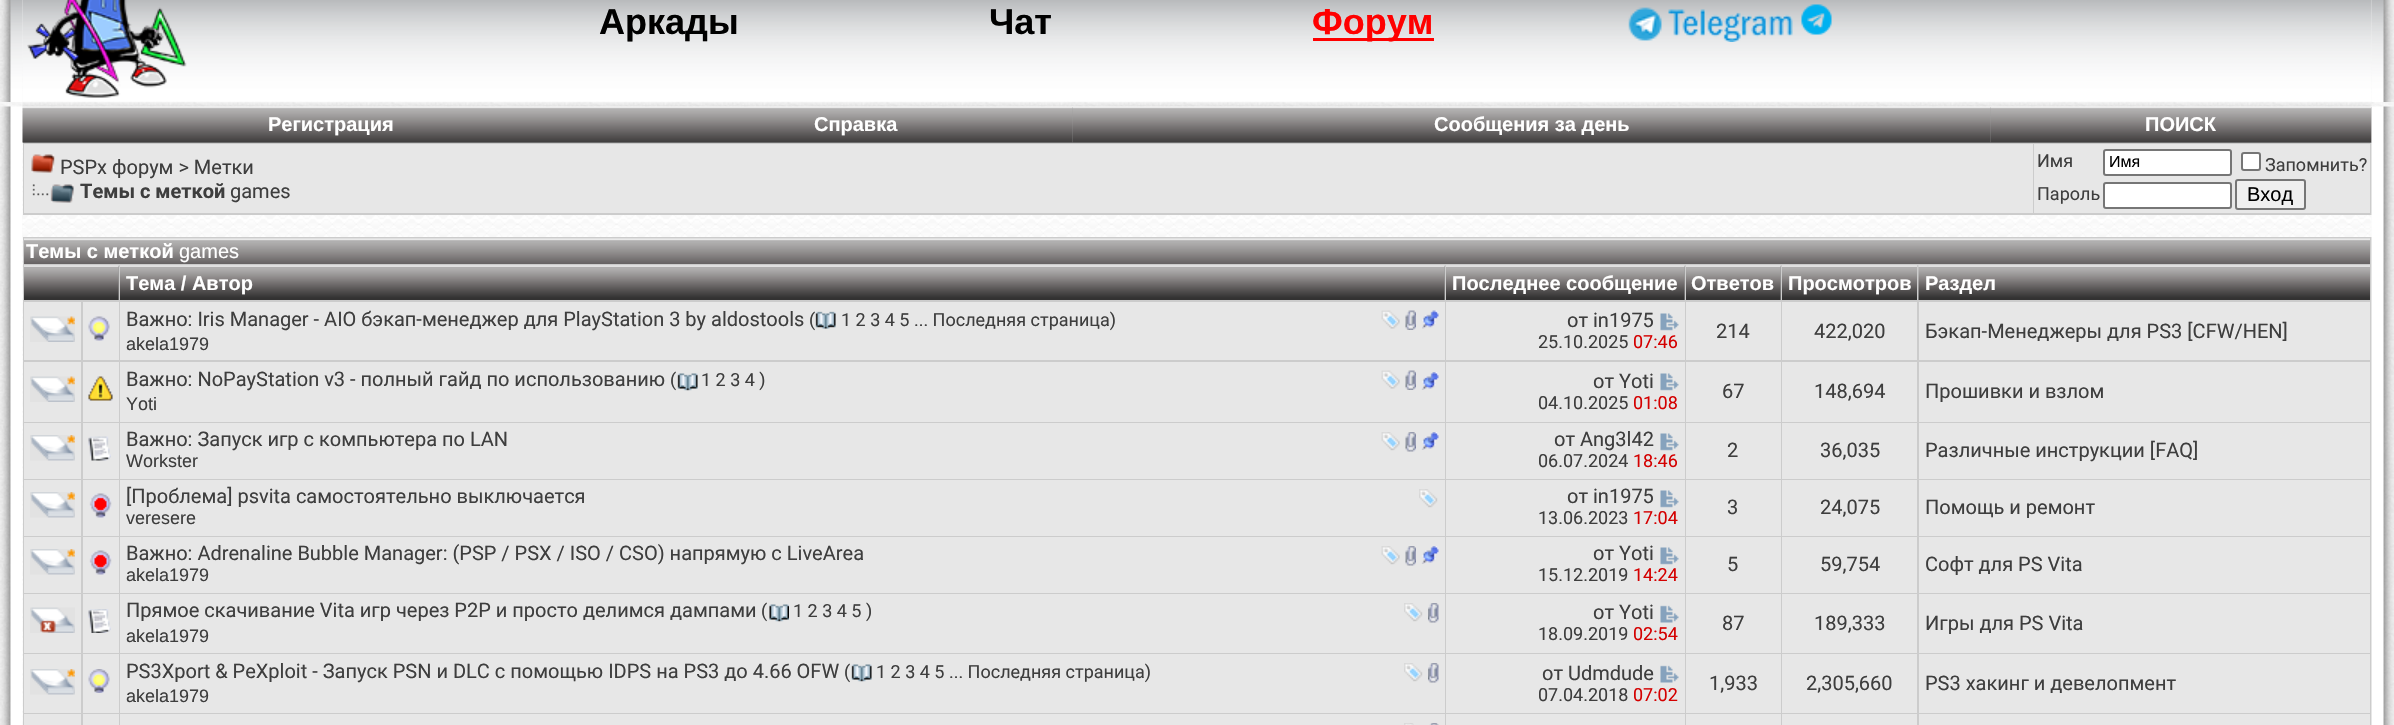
void draw(SkCanvas* canvas) {
	SkPaint fill;
	fill.setAntiAlias(true);
	auto makeFont = [&](const char* family, int weight, float size, bool italic = false) {
		SkFontStyle style(weight, SkFontStyle::kNormal_Width,
			italic ? SkFontStyle::kItalic_Slant : SkFontStyle::kUpright_Slant);
		SkFont result(fontMgr->matchFamilyStyle(family, style), size);
		result.setSubpixel(true);
		return result;
	};
	auto text = [&](const char* s, float x, float y, const SkFont& font) {
		canvas->drawString(s, x, y, font, fill);
	};
	auto box = [&](float l, float t, float r, float b) {
		canvas->drawRect(SkRect::MakeLTRB(l, t, r, b), fill);
	};
	auto picture = [&](const char* path, float l, float t, float r, float b) {
		auto image = SkImages::DeferredFromEncodedData(SkData::MakeFromFileName(path));
		canvas->drawImageRect(image, SkRect::MakeLTRB(l, t, r, b), SkSamplingOptions());
	};
	canvas->clear(0xFFFFFFFF);
	picture("image0.png", 0, 0, 2394, 725);
	picture("image2.png", 22, 0, 2372, 107);
	picture("image1.png", 0, 0, 23, 102);
	picture("image3.png", 27, 0, 187, 98);
	fill.setColor(0xFFFF0000);
	box(1313, 38, 1434, 41);
	picture("image4.png", 1628, 7, 1793, 42);
	picture("image5.png", 1801, 4, 1832, 35);
	picture("image6.png", 2371, 0, 2394, 102);
	picture("image7.png", 0, 106, 23, 725);
	picture("image8.png", 22, 106, 2372, 725);
	fill.setColor(0xFF9C9C9C);
	box(23, 142, 639, 143);
	picture("image9.png", 22, 107, 639, 143);
	box(639, 107, 2372, 143);
	picture("image10.png", 639, 107, 1073, 143);
	picture("image11.png", 1072, 107, 1991, 143);
	picture("image12.png", 1990, 107, 2372, 143);
	fill.setColor(0xFFCCCCCC);
	box(23, 143, 2372, 215);
	fill.setColor(0xFFE7E7E7);
	box(24, 144, 2033, 213);
	picture("image13.png", 31, 154, 55, 173);
	picture("image14.png", 32, 184, 74, 203);
	box(2034, 144, 2370, 213);
	fill.setColor(0xFFFFFFFF);
	canvas->drawRoundRect(SkRect::MakeLTRB(2104, 150, 2231, 175), 2, 2, fill);
	fill.setStyle(SkPaint::kStroke_Style);
	fill.setStrokeWidth(2);
	fill.setColor(0xFF767676);
	canvas->drawRoundRect(SkRect::MakeLTRB(2104, 150, 2231, 175), 2, 2, fill);
	fill.setStyle(SkPaint::kFill_Style);
	fill.setColor(0xFFFFFFFF);
	canvas->drawRoundRect(SkRect::MakeLTRB(2242, 153, 2260, 170), 2, 2, fill);
	fill.setStyle(SkPaint::kStroke_Style);
	fill.setColor(0xFF767676);
	canvas->drawRoundRect(SkRect::MakeLTRB(2242, 153, 2260, 170), 2, 2, fill);
	fill.setStyle(SkPaint::kFill_Style);
	fill.setColor(0xFFFFFFFF);
	canvas->drawRoundRect(SkRect::MakeLTRB(2104, 183, 2231, 208), 2, 2, fill);
	fill.setStyle(SkPaint::kStroke_Style);
	fill.setColor(0xFF767676);
	canvas->drawRoundRect(SkRect::MakeLTRB(2104, 183, 2231, 208), 2, 2, fill);
	fill.setStyle(SkPaint::kFill_Style);
	fill.setColor(0xFFEFEFEF);
	canvas->drawRoundRect(SkRect::MakeLTRB(2236, 180, 2305, 209), 2, 2, fill);
	fill.setStyle(SkPaint::kStroke_Style);
	fill.setColor(0xFF767676);
	canvas->drawRoundRect(SkRect::MakeLTRB(2236, 180, 2305, 209), 2, 2, fill);
	fill.setStyle(SkPaint::kFill_Style);
	fill.setColor(0xFFCCCCCC);
	box(23, 237, 2372, 725);
	picture("image15.png", 24, 238, 2370, 264);
	fill.setColor(0xFF9C9C9C);
	box(118, 266, 119, 300);
	picture("image16.png", 24, 265, 119, 300);
	box(1444, 266, 1445, 300);
	picture("image17.png", 120, 265, 1445, 300);
	box(1684, 266, 1685, 300);
	picture("image18.png", 1446, 265, 1685, 300);
	box(1780, 266, 1781, 300);
	picture("image16.png", 1686, 265, 1781, 300);
	picture("image19.png", 1782, 265, 1917, 300);
	picture("image20.png", 1918, 265, 2370, 300);
	fill.setColor(0xFFE7E7E7);
	box(24, 302, 81, 360);
	picture("image21.png", 30, 316, 75, 342);
	box(83, 302, 119, 360);
	picture("image22.png", 88, 316, 110, 341);
	box(120, 302, 1445, 360);
	picture("image23.png", 815, 311, 836, 329);
	picture("image24.png", 1381, 310, 1400, 329);
	picture("image25.png", 1405, 310, 1416, 330);
	picture("image26.png", 1422, 310, 1439, 329);
	box(1446, 302, 1685, 360);
	picture("image27.png", 1660, 313, 1679, 331);
	box(1686, 302, 1781, 360);
	box(1782, 302, 1917, 360);
	box(1919, 302, 2370, 360);
	box(24, 362, 81, 422);
	picture("image21.png", 30, 376, 75, 402);
	box(83, 362, 119, 422);
	picture("image28.png", 88, 376, 113, 401);
	box(120, 362, 1445, 422);
	picture("image29.png", 677, 373, 698, 391);
	picture("image24.png", 1381, 370, 1400, 389);
	picture("image25.png", 1405, 370, 1416, 390);
	picture("image30.png", 1421, 372, 1439, 390);
	box(1446, 362, 1685, 422);
	picture("image27.png", 1660, 373, 1679, 391);
	box(1686, 362, 1781, 422);
	box(1782, 362, 1917, 422);
	box(1919, 362, 2370, 422);
	box(24, 423, 81, 479);
	picture("image31.png", 30, 435, 75, 461);
	box(83, 423, 119, 479);
	picture("image32.png", 88, 436, 111, 461);
	box(120, 423, 1445, 479);
	picture("image33.png", 1381, 432, 1400, 451);
	picture("image34.png", 1405, 432, 1416, 452);
	picture("image30.png", 1421, 432, 1439, 450);
	box(1446, 423, 1685, 479);
	picture("image27.png", 1660, 433, 1679, 451);
	box(1686, 423, 1781, 479);
	box(1782, 423, 1917, 479);
	box(1919, 423, 2370, 479);
	box(24, 480, 81, 536);
	picture("image31.png", 30, 492, 75, 518);
	box(83, 480, 119, 536);
	picture("image35.png", 89, 493, 112, 518);
	box(120, 480, 1445, 536);
	picture("image36.png", 1419, 489, 1438, 508);
	box(1446, 480, 1685, 536);
	picture("image27.png", 1660, 490, 1679, 508);
	box(1686, 480, 1781, 536);
	box(1782, 480, 1917, 536);
	box(1919, 480, 2370, 536);
	box(24, 537, 81, 593);
	picture("image31.png", 30, 549, 75, 575);
	box(83, 537, 119, 593);
	picture("image35.png", 89, 550, 112, 575);
	box(120, 537, 1445, 593);
	picture("image33.png", 1381, 546, 1400, 565);
	picture("image34.png", 1405, 546, 1416, 566);
	picture("image30.png", 1421, 546, 1439, 564);
	box(1446, 537, 1685, 593);
	picture("image27.png", 1660, 547, 1679, 565);
	box(1686, 537, 1781, 593);
	box(1782, 537, 1917, 593);
	box(1919, 537, 2370, 593);
	box(24, 594, 81, 653);
	picture("image37.png", 30, 607, 75, 633);
	box(83, 594, 119, 653);
	picture("image38.png", 88, 609, 111, 633);
	box(120, 594, 1445, 653);
	picture("image39.png", 769, 604, 789, 622);
	picture("image36.png", 1404, 603, 1423, 622);
	picture("image40.png", 1428, 603, 1439, 623);
	box(1446, 594, 1685, 653);
	picture("image41.png", 1660, 605, 1679, 623);
	box(1686, 594, 1781, 653);
	box(1782, 594, 1917, 653);
	box(1919, 594, 2370, 653);
	box(24, 654, 81, 713);
	picture("image31.png", 30, 669, 75, 695);
	box(83, 654, 119, 713);
	picture("image42.png", 88, 669, 110, 693);
	box(120, 654, 1445, 713);
	picture("image43.png", 851, 664, 872, 682);
	picture("image36.png", 1404, 663, 1423, 682);
	picture("image40.png", 1428, 663, 1439, 683);
	box(1446, 654, 1685, 713);
	picture("image41.png", 1660, 665, 1679, 683);
	box(1686, 654, 1781, 713);
	box(1782, 654, 1917, 713);
	box(1919, 654, 2370, 713);
	box(24, 714, 81, 725);
	box(83, 714, 119, 725);
	box(120, 714, 1445, 725);
	picture("image44.png", 1404, 723, 1414, 725);
	picture("image45.png", 1429, 723, 1439, 725);
	box(1446, 714, 1685, 725);
	box(1686, 714, 1781, 725);
	box(1782, 714, 1917, 725);
	box(1919, 714, 2370, 725);
	picture("image46.png", 2371, 106, 2394, 725);
	auto font1 = makeFont("Liberation Sans", 700, 36);
	fill.setColor(0xFF000000);
	text("Аркады", 599, 34, font1);
	text("Чат", 989, 34, font1);
	fill.setColor(0xFFFF0000);
	text("Форум", 1312, 34, font1);
	auto font2 = makeFont("Liberation Sans", 700, 20);
	fill.setColor(0xFFFFFFFF);
	text("Регистрация", 268, 131, font2);
	text("Справка", 814, 131, font2);
	text("Сообщения за день", 1434, 131, font2);
	text("ПОИСК", 2145, 131, font2);
	auto font3 = makeFont("Roboto", 400, 20);
	fill.setColor(0xFF3E3E3E);
	text("PSPx форум > Метки", 60, 174, font3);
	auto font4 = makeFont("Roboto", 700, 20);
	text("Темы с меткой", 80, 198, font4);
	text("games", 230, 198, font3);
	auto font5 = makeFont("Roboto", 400, 18);
	text("Имя", 2037, 167, font5);
	auto font6 = makeFont("Liberation Sans", 400, 16);
	fill.setColor(0xFF000000);
	text("Имя", 2109, 167, font6);
	fill.setColor(0xFF3E3E3E);
	text("Запомнить?", 2265, 171, font5);
	text("Пароль", 2037, 200, font5);
	auto font7 = makeFont("Liberation Sans", 400, 20);
	fill.setColor(0xFF000000);
	text("Вход", 2247, 201, font7);
	fill.setColor(0xFFFFFFFF);
	text("Темы с меткой", 26, 258, font2);
	text("games", 179, 258, font7);
	text("Тема / Автор", 126, 290, font2);
	text("Последнее сообщение", 1452, 290, font2);
	text("Ответов", 1691, 290, font2);
	text("Просмотров", 1788, 290, font2);
	text("Раздел", 1925, 290, font2);
	fill.setColor(0xFF3E3E3E);
	text("Важно: Iris Manager - AIO бэкап-менеджер для PlayStation 3 by aldostools", 126, 326, font3);
	text("(", 809, 326, font5);
	text("1 2 3 4 5 ... Последняя страница)", 841, 326, font5);
	auto font8 = makeFont("Liberation Sans", 400, 18);
	text("akela1979", 126, 350, font8);
	text("от in1975", 1567, 327, font3);
	text("25.10.2025", 1538, 348, font5);
	fill.setColor(0xFFD40000);
	text("07:46", 1633, 348, font5);
	fill.setColor(0xFF3E3E3E);
	text("214", 1716, 338, font3);
	text("422,020", 1814, 338, font3);
	text("Бэкап-Менеджеры для PS3 [CFW/HEN]", 1925, 338, font3);
	text("Важно: NoPayStation v3 - полный гайд по использованию", 126, 386, font3);
	text("(", 670, 386, font5);
	text("1 2 3 4 )", 701, 386, font5);
	text("Yoti", 126, 410, font8);
	text("от Yoti", 1593, 388, font3);
	text("04.10.2025", 1538, 409, font5);
	fill.setColor(0xFFD40000);
	text("01:08", 1633, 409, font5);
	fill.setColor(0xFF3E3E3E);
	text("67", 1722, 398, font3);
	text("148,694", 1814, 398, font3);
	text("Прошивки и взлом", 1925, 398, font3);
	text("Важно: Запуск игр с компьютера по LAN", 126, 446, font3);
	text("Workster", 126, 467, font8);
	text("от Ang3l42", 1554, 446, font3);
	text("06.07.2024", 1538, 467, font5);
	fill.setColor(0xFFD40000);
	text("18:46", 1633, 467, font5);
	fill.setColor(0xFF3E3E3E);
	text("2", 1727, 457, font3);
	text("36,035", 1820, 457, font3);
	text("Различные инструкции [FAQ]", 1925, 457, font3);
	text("[Проблема] psvita самостоятельно выключается", 126, 503, font3);
	text("veresere", 126, 524, font8);
	text("от in1975", 1567, 503, font3);
	text("13.06.2023", 1538, 524, font5);
	fill.setColor(0xFFD40000);
	text("17:04", 1633, 524, font5);
	fill.setColor(0xFF3E3E3E);
	text("3", 1727, 514, font3);
	text("24,075", 1820, 514, font3);
	text("Помощь и ремонт", 1925, 514, font3);
	text("Важно: Adrenaline Bubble Manager: (PSP / PSX / ISO / CSO) напрямую с LiveArea", 126, 560, font3);
	text("akela1979", 126, 581, font8);
	text("от Yoti", 1593, 560, font3);
	text("15.12.2019", 1538, 581, font5);
	fill.setColor(0xFFD40000);
	text("14:24", 1633, 581, font5);
	fill.setColor(0xFF3E3E3E);
	text("5", 1727, 571, font3);
	text("59,754", 1820, 571, font3);
	text("Софт для PS Vita", 1925, 571, font3);
	text("Прямое скачивание Vita игр через P2P и просто делимся дампами", 126, 617, font3);
	text("(", 761, 617, font5);
	text("1 2 3 4 5 )", 793, 617, font5);
	text("akela1979", 126, 642, font8);
	text("от Yoti", 1593, 619, font3);
	text("18.09.2019", 1538, 640, font5);
	fill.setColor(0xFFD40000);
	text("02:54", 1633, 640, font5);
	fill.setColor(0xFF3E3E3E);
	text("87", 1722, 630, font3);
	text("189,333", 1814, 630, font3);
	text("Игры для PS Vita", 1925, 630, font3);
	text("PS3Xport & PeXploit - Запуск PSN и DLC с помощью IDPS на PS3 до 4.66 OFW", 126, 678, font3);
	text("(", 844, 678, font5);
	text("1 2 3 4 5 ... Последняя страница)", 876, 678, font5);
	text("akela1979", 126, 702, font8);
	text("от Udmdude", 1542, 680, font3);
	text("07.04.2018", 1538, 701, font5);
	fill.setColor(0xFFD40000);
	text("07:02", 1633, 701, font5);
	fill.setColor(0xFF3E3E3E);
	text("1,933", 1709, 690, font3);
	text("2,305,660", 1806, 690, font3);
	text("PS3 хакинг и девелопмент", 1925, 690, font3);
}
